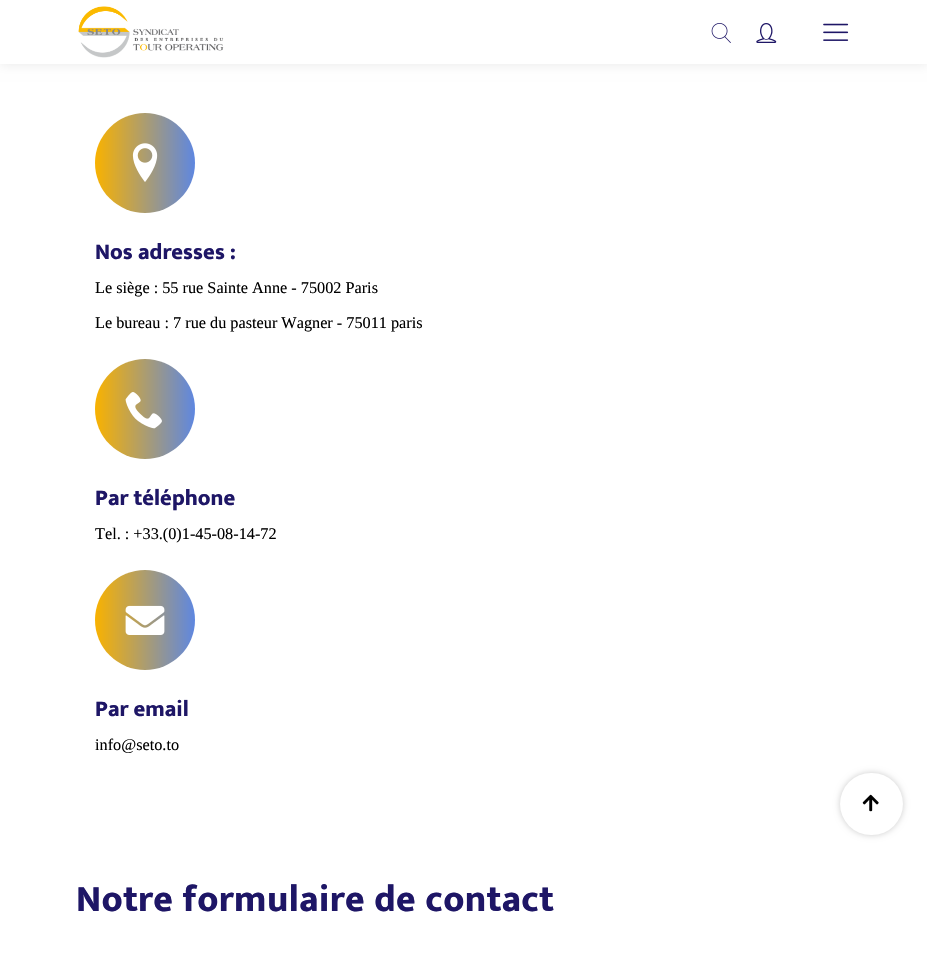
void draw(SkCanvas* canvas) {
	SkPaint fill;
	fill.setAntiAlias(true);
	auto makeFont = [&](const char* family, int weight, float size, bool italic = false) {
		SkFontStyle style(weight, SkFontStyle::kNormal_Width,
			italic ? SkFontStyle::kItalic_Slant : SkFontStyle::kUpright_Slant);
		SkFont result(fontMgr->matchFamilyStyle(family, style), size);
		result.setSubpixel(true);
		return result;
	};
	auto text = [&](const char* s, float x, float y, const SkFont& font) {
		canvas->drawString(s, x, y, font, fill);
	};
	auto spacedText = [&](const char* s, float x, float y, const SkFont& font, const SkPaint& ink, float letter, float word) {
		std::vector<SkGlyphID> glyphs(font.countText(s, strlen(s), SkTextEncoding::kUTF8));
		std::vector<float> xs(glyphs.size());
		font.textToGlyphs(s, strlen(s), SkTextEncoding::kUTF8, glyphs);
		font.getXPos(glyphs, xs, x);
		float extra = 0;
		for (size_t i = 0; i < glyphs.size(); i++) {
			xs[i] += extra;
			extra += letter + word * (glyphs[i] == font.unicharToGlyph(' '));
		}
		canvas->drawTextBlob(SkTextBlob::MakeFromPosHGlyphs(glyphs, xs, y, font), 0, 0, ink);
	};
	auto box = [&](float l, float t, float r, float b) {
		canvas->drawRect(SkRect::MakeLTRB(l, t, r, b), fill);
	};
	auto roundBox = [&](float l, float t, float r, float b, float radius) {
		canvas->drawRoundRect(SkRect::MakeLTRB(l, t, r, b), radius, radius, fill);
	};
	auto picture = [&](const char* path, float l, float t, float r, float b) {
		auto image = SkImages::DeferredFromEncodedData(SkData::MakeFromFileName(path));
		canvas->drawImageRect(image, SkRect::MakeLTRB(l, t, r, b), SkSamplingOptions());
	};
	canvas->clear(0xFFFFFFFF);
	fill.setColor(0x17000000);
	fill.setMaskFilter(SkMaskFilter::MakeBlur(kNormal_SkBlurStyle, 6));
	canvas->drawRect(SkRect::MakeLTRB(0, 0, 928, 64), fill);
	fill.setMaskFilter(nullptr);
	fill.setColor(0xFFFFFFFF);
	box(0, 0, 927, 64);
	picture("image0.png", 78, 6, 224, 58);
	picture("image1.png", 711, 23, 731, 43);
	picture("image2.png", 756, 23, 777, 43);
	picture("image3.png", 823, 23, 849, 41);
	{
		const SkColor colors[] = {0xFFF9B200, 0xFF5B86E5, 0xFFF9B200};
		const float stops[] = {0, 0.51f, 1};
		const SkPoint ends[] = {{95, 163}, {295, 163}};
		fill.setShader(SkGradientShader::MakeLinear(ends, colors, stops, 3, SkTileMode::kClamp));
		fill.setAlpha(255);
	}
	canvas->drawCircle(145, 163, 50, fill);
	picture("image4.png", 132, 143, 158, 182);
	{
		const SkColor colors[] = {0xFFF9B200, 0xFF5B86E5, 0xFFF9B200};
		const float stops[] = {0, 0.51f, 1};
		const SkPoint ends[] = {{95, 409}, {295, 409}};
		fill.setShader(SkGradientShader::MakeLinear(ends, colors, stops, 3, SkTileMode::kClamp));
		fill.setAlpha(255);
	}
	canvas->drawCircle(145, 409, 50, fill);
	picture("image5.png", 125, 392, 162, 429);
	{
		const SkColor colors[] = {0xFFF9B200, 0xFF5B86E5, 0xFFF9B200};
		const float stops[] = {0, 0.51f, 1};
		const SkPoint ends[] = {{95, 620}, {295, 620}};
		fill.setShader(SkGradientShader::MakeLinear(ends, colors, stops, 3, SkTileMode::kClamp));
		fill.setAlpha(255);
	}
	canvas->drawCircle(145, 620, 50, fill);
	picture("image6.png", 125, 605, 165, 635);
	fill.setShader(nullptr);
	fill.setColor(0x33000000);
	fill.setMaskFilter(SkMaskFilter::MakeBlur(kNormal_SkBlurStyle, 3));
	canvas->drawRoundRect(SkRect::MakeLTRB(840, 773, 903, 835), 31, 31, fill);
	fill.setMaskFilter(nullptr);
	fill.setColor(0xFFFFFFFF);
	roundBox(840, 773, 903, 835, 31);
	picture("image7.png", 862, 794, 879, 812);
	auto font1 = makeFont("Mukta Vaani", 800, 22.5f);
	fill.setColor(0xFF1E1666);
	text("Nos adresses :", 95, 259, font1);
	auto font2 = makeFont("Liberation Serif", 400, 16.25f);
	fill.setColor(0xFF000000);
	text("Le siège : 55 rue Sainte Anne - 75002 Paris", 95, 293, font2);
	text("Le bureau : 7 rue du pasteur Wagner - 75011 paris", 95, 328, font2);
	fill.setColor(0xFF1E1666);
	text("Par téléphone", 95, 505, font1);
	fill.setColor(0xFF000000);
	text("Tel. : +33.(0)1-45-08-14-72", 95, 539, font2);
	fill.setColor(0xFF1E1666);
	text("Par email", 95, 716, font1);
	fill.setColor(0xFF000000);
	text("info@seto.to", 95, 750, font2);
	auto font3 = makeFont("Mukta Vaani", 800, 37.5f);
	fill.setColor(0xFF1E1666);
	spacedText("Notre formulaire de contact", 76, 911, font3, fill, 0.4f, 0);
}
